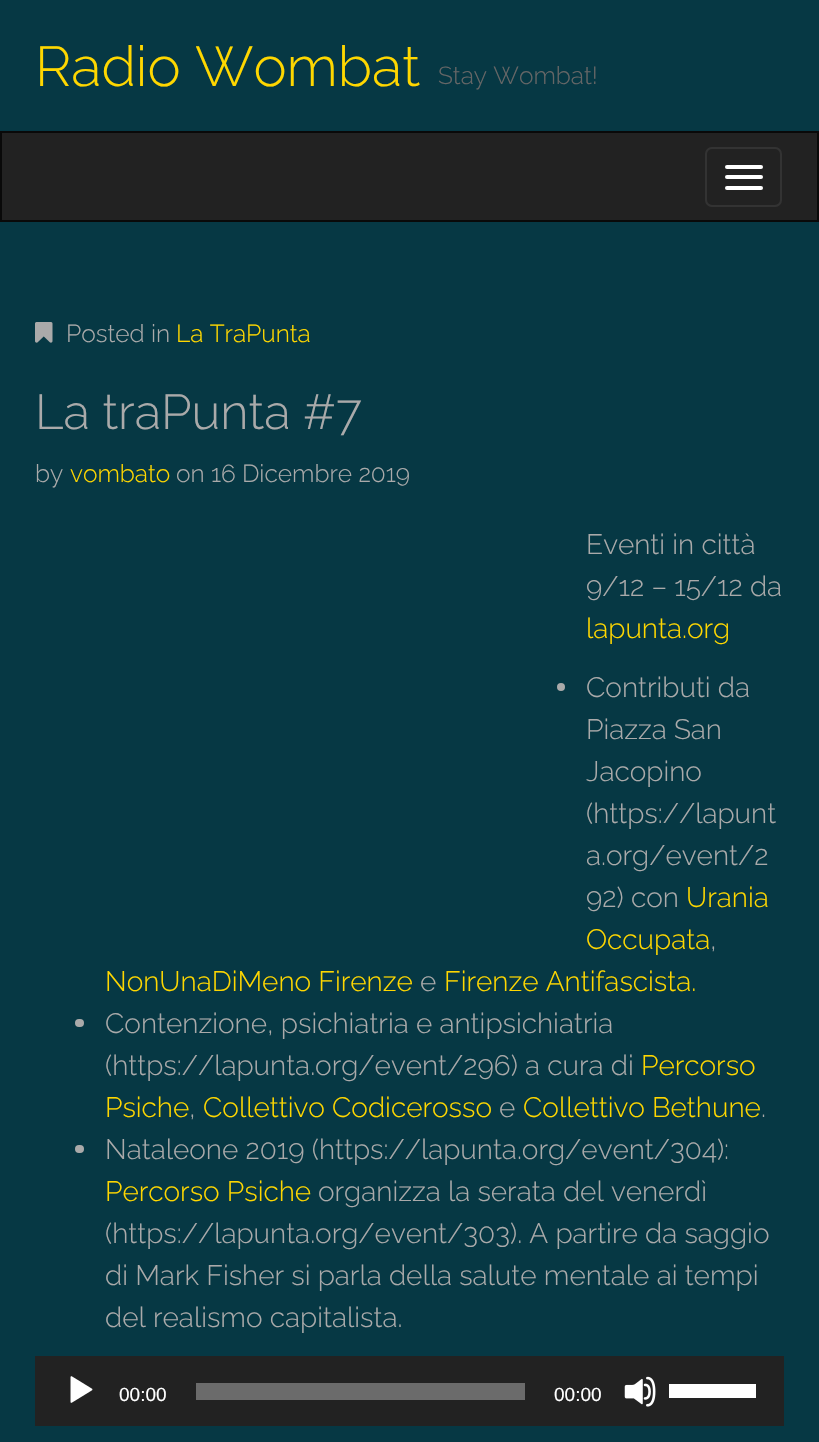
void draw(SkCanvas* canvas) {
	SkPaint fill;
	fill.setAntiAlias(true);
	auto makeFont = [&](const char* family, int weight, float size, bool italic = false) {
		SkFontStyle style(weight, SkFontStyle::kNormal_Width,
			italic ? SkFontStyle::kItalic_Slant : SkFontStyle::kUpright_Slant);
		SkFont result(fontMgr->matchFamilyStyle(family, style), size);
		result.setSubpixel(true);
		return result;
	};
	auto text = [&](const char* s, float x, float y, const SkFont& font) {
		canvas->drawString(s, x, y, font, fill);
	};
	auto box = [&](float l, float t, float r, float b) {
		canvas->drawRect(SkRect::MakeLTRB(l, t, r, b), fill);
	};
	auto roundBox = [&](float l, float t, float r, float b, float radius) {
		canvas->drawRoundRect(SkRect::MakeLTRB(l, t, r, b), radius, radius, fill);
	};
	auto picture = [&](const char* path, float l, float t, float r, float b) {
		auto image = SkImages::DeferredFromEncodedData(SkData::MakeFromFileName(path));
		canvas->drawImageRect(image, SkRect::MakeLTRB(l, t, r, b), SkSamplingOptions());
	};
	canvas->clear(0xFF063844);
	fill.setColor(0xFF222222);
	canvas->drawRect(SkRect::MakeLTRB(1, 132, 818, 221), fill);
	fill.setStyle(SkPaint::kStroke_Style);
	fill.setStrokeWidth(2);
	fill.setColor(0xFF090909);
	canvas->drawRect(SkRect::MakeLTRB(1, 132, 818, 221), fill);
	fill.setColor(0xFF333333);
	canvas->drawRoundRect(SkRect::MakeLTRB(706, 148, 781, 206), 6, 6, fill);
	fill.setStyle(SkPaint::kFill_Style);
	fill.setColor(0xFFFFFFFF);
	roundBox(725, 165, 763, 169, 2);
	roundBox(725, 175, 763, 179, 2);
	roundBox(725, 186, 763, 190, 2);
	picture("image0.png", 35, 322, 53, 343);
	fill.setColor(0xFFAAAAAA);
	canvas->drawCircle(561, 687, 4, fill);
	roundBox(75, 1019, 84, 1027, 4);
	roundBox(75, 1145, 84, 1153, 4);
	fill.setColor(0xFF222222);
	box(35, 1356, 784, 1426);
	picture("image1.png", 70, 1376, 93, 1403);
	fill.setColor(0xFF6B6B6B);
	box(196, 1383, 525, 1400);
	picture("image2.png", 624, 1376, 656, 1407);
	fill.setColor(0xFFFFFFFF);
	box(669, 1384, 756, 1398);
	auto font1 = makeFont("Raleway", 300, 56);
	fill.setColor(0xFFFFD700);
	text("Radio Wombat", 35, 86, font1);
	auto font2 = makeFont("Raleway", 300, 24.5f);
	fill.setColor(0xFF666666);
	text("Stay Wombat!", 438, 84, font2);
	fill.setColor(0xFFAAAAAA);
	text("Posted in", 66, 342, font2);
	fill.setColor(0xFFFFD700);
	text("La TraPunta", 176, 342, font2);
	auto font3 = makeFont("Raleway", 300, 49);
	fill.setColor(0xFFAAAAAA);
	text("La traPunta #7", 35, 429, font3);
	text("by", 35, 482, font2);
	fill.setColor(0xFFFFD700);
	text("vombato", 70, 482, font2);
	fill.setColor(0xFFAAAAAA);
	text("on 16 Dicembre 2019", 176, 482, font2);
	auto font4 = makeFont("Raleway", 300, 28);
	text("Eventi in città", 586, 554, font4);
	text("9/12 – 15/12 da", 586, 596, font4);
	fill.setColor(0xFFFFD700);
	text("lapunta.org", 586, 638, font4);
	fill.setColor(0xFFAAAAAA);
	text("Contributi da", 586, 697, font4);
	text("Piazza San", 586, 739, font4);
	text("Jacopino", 586, 781, font4);
	text("(https://lapunt", 586, 823, font4);
	text("a.org/event/2", 586, 865, font4);
	text("92) con", 586, 907, font4);
	fill.setColor(0xFFFFD700);
	text("Urania", 686, 907, font4);
	text("Occupata", 586, 949, font4);
	fill.setColor(0xFFAAAAAA);
	text(",", 710, 949, font4);
	fill.setColor(0xFFFFD700);
	text("NonUnaDiMeno Firenze", 105, 991, font4);
	fill.setColor(0xFFAAAAAA);
	text("e", 420, 991, font4);
	fill.setColor(0xFFFFD700);
	text("Firenze Antifascista.", 444, 991, font4);
	fill.setColor(0xFFAAAAAA);
	text("Contenzione, psichiatria e antipsichiatria", 105, 1033, font4);
	text("(https://lapunta.org/event/296) a cura di", 105, 1075, font4);
	fill.setColor(0xFFFFD700);
	text("Percorso", 641, 1075, font4);
	text("Psiche", 105, 1117, font4);
	fill.setColor(0xFFAAAAAA);
	text(",", 189, 1117, font4);
	fill.setColor(0xFFFFD700);
	text("Collettivo Codicerosso", 203, 1117, font4);
	fill.setColor(0xFFAAAAAA);
	text("e", 499, 1117, font4);
	fill.setColor(0xFFFFD700);
	text("Collettivo Bethune", 523, 1117, font4);
	fill.setColor(0xFFAAAAAA);
	text(".", 761, 1117, font4);
	text("Nataleone 2019 (https://lapunta.org/event/304):", 105, 1159, font4);
	fill.setColor(0xFFFFD700);
	text("Percorso Psiche", 105, 1201, font4);
	fill.setColor(0xFFAAAAAA);
	text("organizza la serata del venerdì", 318, 1201, font4);
	text("(https://lapunta.org/event/303). A partire da saggio", 105, 1243, font4);
	text("di Mark Fisher si parla della salute mentale ai tempi", 105, 1285, font4);
	text("del realismo capitalista.", 105, 1327, font4);
	auto font5 = makeFont("Liberation Sans", 400, 19);
	fill.setColor(0xFFFFFFFF);
	text("00:00", 119, 1401, font5);
	text("00:00", 554, 1401, font5);
}
